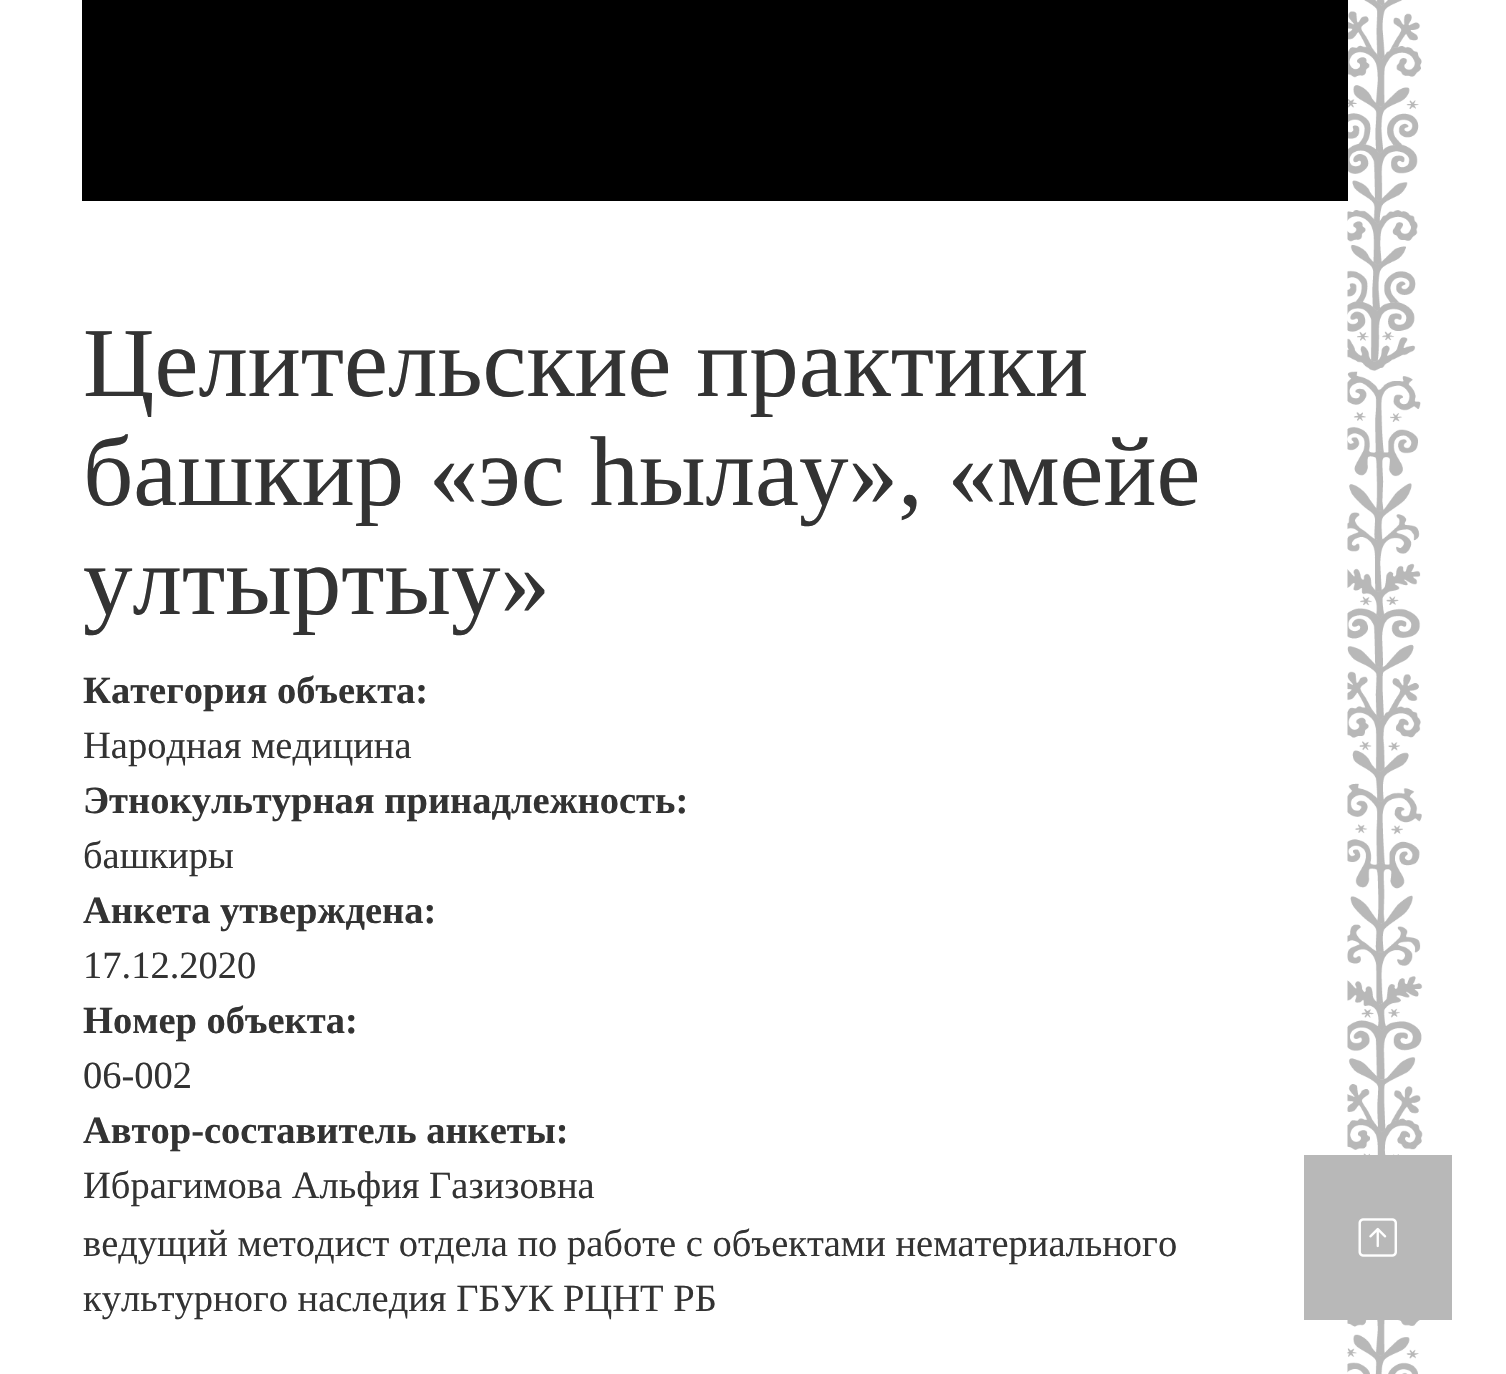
void draw(SkCanvas* canvas) {
	SkPaint fill;
	fill.setAntiAlias(true);
	auto makeFont = [&](const char* family, int weight, float size, bool italic = false) {
		SkFontStyle style(weight, SkFontStyle::kNormal_Width,
			italic ? SkFontStyle::kItalic_Slant : SkFontStyle::kUpright_Slant);
		SkFont result(fontMgr->matchFamilyStyle(family, style), size);
		result.setSubpixel(true);
		return result;
	};
	auto text = [&](const char* s, float x, float y, const SkFont& font) {
		canvas->drawString(s, x, y, font, fill);
	};
	auto box = [&](float l, float t, float r, float b) {
		canvas->drawRect(SkRect::MakeLTRB(l, t, r, b), fill);
	};
	auto picture = [&](const char* path, float l, float t, float r, float b) {
		auto image = SkImages::DeferredFromEncodedData(SkData::MakeFromFileName(path));
		canvas->drawImageRect(image, SkRect::MakeLTRB(l, t, r, b), SkSamplingOptions());
	};
	canvas->clear(0xFFFFFFFF);
	picture("image0.png", 1347, 0, 1423, 1374);
	fill.setColor(0xFF000000);
	box(82, 0, 1348, 201);
	fill.setColor(0xFFB8B8B8);
	box(1304, 1155, 1452, 1320);
	picture("image1.png", 1358, 1218, 1397, 1257);
	auto font1 = makeFont("Liberation Serif", 400, 99);
	fill.setColor(0xFF333333);
	text("Целительские практики", 83, 396, font1);
	text("башкир «эс һылау», «мейе", 83, 505, font1);
	text("ултыртыу»", 83, 614, font1);
	auto font2 = makeFont("Liberation Serif", 700, 38.5f);
	text("Категория объекта:", 83, 703, font2);
	auto font3 = makeFont("Liberation Serif", 400, 38.5f);
	text("Народная медицина", 83, 758, font3);
	text("Этнокультурная принадлежность:", 83, 813, font2);
	text("башкиры", 83, 868, font3);
	text("Анкета утверждена:", 83, 923, font2);
	text("17.12.2020", 83, 978, font3);
	text("Номер объекта:", 83, 1033, font2);
	text("06-002", 83, 1088, font3);
	text("Автор-составитель анкеты:", 83, 1143, font2);
	text("Ибрагимова Альфия Газизовна", 83, 1198, font3);
	text("ведущий методист отдела по работе с объектами нематериального", 83, 1256, font3);
	text("культурного наследия ГБУК РЦНТ РБ", 83, 1311, font3);
}
